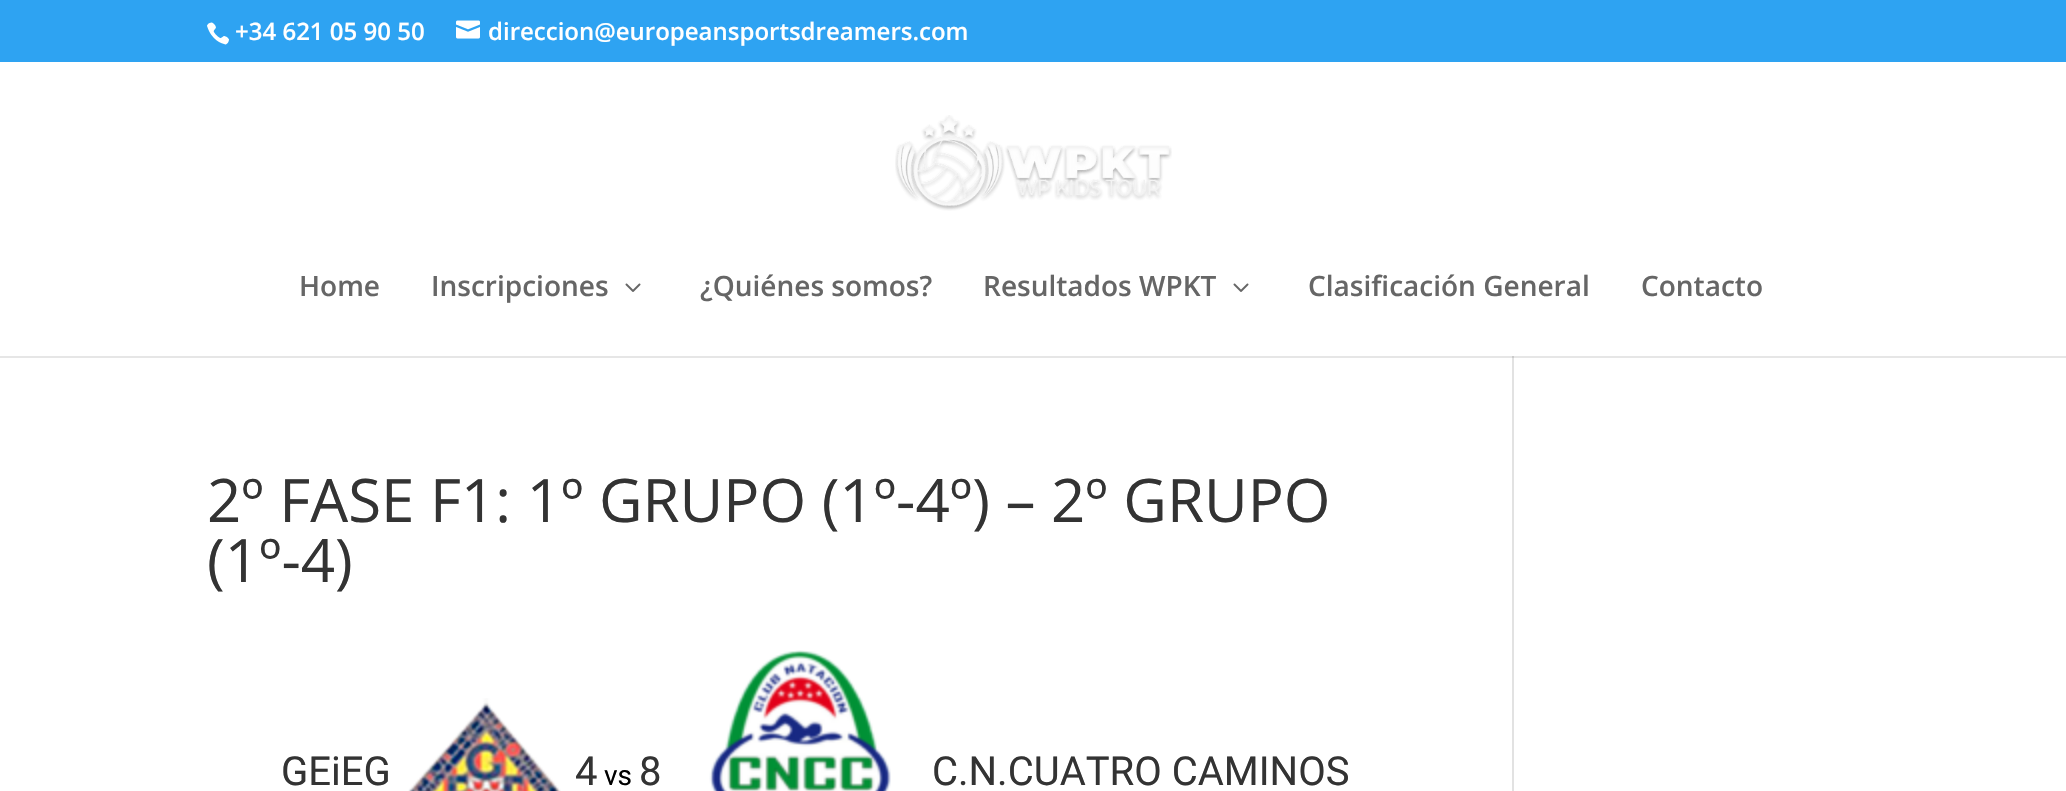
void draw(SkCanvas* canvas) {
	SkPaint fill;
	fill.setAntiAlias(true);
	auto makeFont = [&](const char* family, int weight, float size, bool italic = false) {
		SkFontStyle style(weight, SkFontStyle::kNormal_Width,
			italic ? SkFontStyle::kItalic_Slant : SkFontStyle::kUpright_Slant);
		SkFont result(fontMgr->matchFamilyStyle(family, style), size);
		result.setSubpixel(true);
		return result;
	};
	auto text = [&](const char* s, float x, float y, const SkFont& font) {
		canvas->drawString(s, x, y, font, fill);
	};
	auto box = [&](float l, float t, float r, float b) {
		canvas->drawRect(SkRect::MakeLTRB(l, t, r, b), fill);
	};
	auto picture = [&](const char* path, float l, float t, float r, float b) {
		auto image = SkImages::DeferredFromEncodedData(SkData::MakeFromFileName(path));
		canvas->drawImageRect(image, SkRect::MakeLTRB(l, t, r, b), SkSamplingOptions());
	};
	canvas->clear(0xFFFFFFFF);
	fill.setColor(0xFF2EA3F2);
	box(0, 0, 2066, 62);
	picture("image0.png", 207, 22, 229, 45);
	picture("image1.png", 456, 20, 480, 39);
	fill.setColor(0xFFE6E6E6);
	box(0, 356, 2066, 358);
	fill.setColor(0xFFE2E2E2);
	box(1512, 354, 1514, 791);
	fill.setColor(0xFFFFFFFF);
	box(1512, 354, 1514, 356);
	picture("image2.png", 895, 115, 1172, 211);
	picture("image3.png", 625, 283, 641, 292);
	picture("image3.png", 1233, 283, 1249, 292);
	picture("image4.png", 408, 698, 561, 791);
	picture("image5.png", 709, 650, 891, 791);
	fill.setColor(0xFFCBCBCB);
	box(1512, 356, 1514, 358);
	auto font1 = makeFont("Open Sans", 600, 24);
	fill.setColor(0xFFFFFFFF);
	text("+34 621 05 90 50", 235, 40, font1);
	text("direccion@europeansportsdreamers.com", 488, 40, font1);
	auto font2 = makeFont("Open Sans", 600, 28);
	fill.setColor(0xFF666666);
	text("Home", 299, 296, font2);
	text("Inscripciones", 431, 296, font2);
	text("¿Quiénes somos?", 700, 296, font2);
	text("Resultados WPKT", 983, 296, font2);
	text("Clasificación General", 1308, 296, font2);
	text("Contacto", 1641, 296, font2);
	auto font3 = makeFont("Open Sans", 400, 60);
	fill.setColor(0xFF333333);
	text("2º FASE F1: 1º GRUPO (1º-4º) – 2º GRUPO", 207, 522, font3);
	text("(1º-4)", 207, 582, font3);
	auto font4 = makeFont("Roboto", 400, 40);
	text("GEiEG", 281, 785, font4);
	text("4", 575, 785, font4);
	auto font5 = makeFont("Roboto", 400, 28);
	fill.setColor(0xFF000000);
	text("vs", 604, 785, font5);
	fill.setColor(0xFF333333);
	text("8", 639, 785, font4);
	text("C.N.CUATRO CAMINOS", 932, 785, font4);
}
